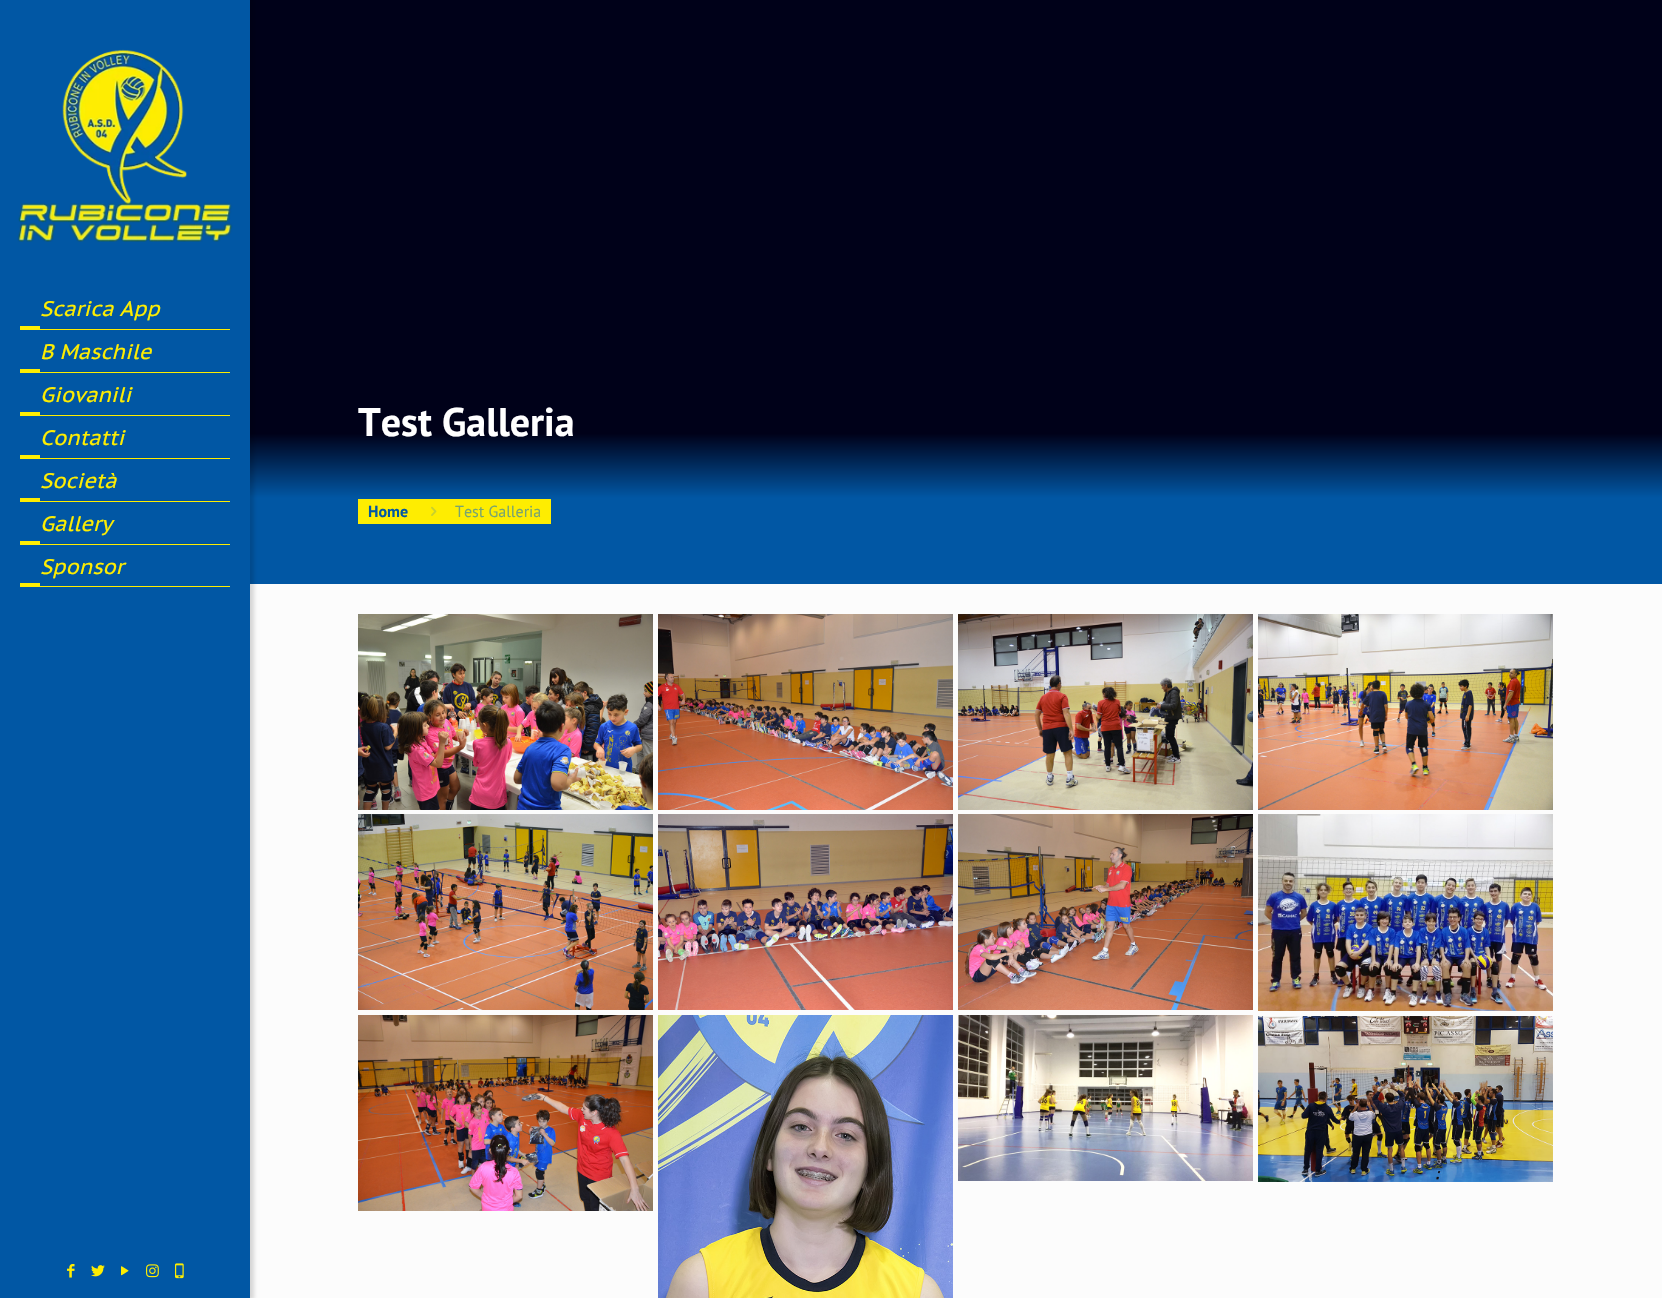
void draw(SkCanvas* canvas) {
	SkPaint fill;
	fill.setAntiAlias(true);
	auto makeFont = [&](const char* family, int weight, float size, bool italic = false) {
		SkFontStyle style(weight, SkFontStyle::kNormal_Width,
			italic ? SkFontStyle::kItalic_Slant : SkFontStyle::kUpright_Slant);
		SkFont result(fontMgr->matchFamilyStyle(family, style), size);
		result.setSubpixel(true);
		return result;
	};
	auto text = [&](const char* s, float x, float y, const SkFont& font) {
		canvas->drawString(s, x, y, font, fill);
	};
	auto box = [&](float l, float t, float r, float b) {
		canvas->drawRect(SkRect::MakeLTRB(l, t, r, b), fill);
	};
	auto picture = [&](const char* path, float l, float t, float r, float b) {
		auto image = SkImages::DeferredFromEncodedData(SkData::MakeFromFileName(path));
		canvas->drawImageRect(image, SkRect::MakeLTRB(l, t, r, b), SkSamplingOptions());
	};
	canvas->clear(0xFFFCFCFC);
	fill.setColor(0xFF000119);
	box(250, 0, 1662, 369);
	{
		const SkColor colors[] = {0xFF000119, 0xFF0157A4, 0xFF0157A4};
		const float stops[] = {0.3f, 0.6f, 0.9f};
		const SkPoint ends[] = {{956, 369}, {956, 584}};
		fill.setShader(SkGradientShader::MakeLinear(ends, colors, stops, 3, SkTileMode::kClamp));
		fill.setAlpha(255);
	}
	box(250, 369, 1662, 584);
	fill.setShader(nullptr);
	fill.setColor(0x26000000);
	fill.setMaskFilter(SkMaskFilter::MakeBlur(kNormal_SkBlurStyle, 2));
	canvas->drawRect(SkRect::MakeLTRB(0, -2, 254, 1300), fill);
	fill.setMaskFilter(nullptr);
	fill.setColor(0xFF0157A4);
	box(0, 0, 250, 1298);
	picture("image0.png", 17, 49, 233, 242);
	fill.setColor(0xFFFEED01);
	box(20, 329, 230, 330);
	fill.setColor(0xFF01539C);
	box(40, 328, 230, 329);
	fill.setColor(0xFFFEED01);
	box(20, 326, 40, 329);
	box(20, 372, 230, 373);
	fill.setColor(0xFF01539C);
	box(40, 371, 230, 372);
	fill.setColor(0xFFFEED01);
	box(20, 369, 40, 372);
	box(20, 415, 230, 416);
	fill.setColor(0xFF01539C);
	box(40, 414, 230, 415);
	fill.setColor(0xFFFEED01);
	box(20, 412, 40, 415);
	box(20, 458, 230, 459);
	fill.setColor(0xFF01539C);
	box(40, 457, 230, 458);
	fill.setColor(0xFFFEED01);
	box(20, 455, 40, 458);
	box(20, 501, 230, 502);
	fill.setColor(0xFF01539C);
	box(40, 500, 230, 501);
	fill.setColor(0xFFFEED01);
	box(20, 498, 40, 501);
	box(20, 544, 230, 545);
	fill.setColor(0xFF01539C);
	box(40, 543, 230, 544);
	fill.setColor(0xFFFEED01);
	box(20, 541, 40, 544);
	box(20, 586, 230, 587);
	box(20, 583, 40, 586);
	picture("image1.png", 67, 1264, 75, 1278);
	picture("image2.png", 91, 1265, 105, 1277);
	picture("image3.png", 121, 1266, 129, 1276);
	picture("image4.png", 146, 1264, 159, 1278);
	picture("image5.png", 175, 1263, 184, 1279);
	box(358, 499, 551, 524);
	picture("image6.png", 431, 506, 437, 516);
	picture("image7.png", 358, 614, 653, 810);
	picture("image8.png", 658, 614, 953, 810);
	picture("image9.png", 958, 614, 1253, 810);
	picture("image10.png", 1258, 614, 1553, 810);
	picture("image11.png", 358, 814, 653, 1010);
	picture("image12.png", 658, 814, 953, 1010);
	picture("image13.png", 958, 814, 1253, 1010);
	picture("image14.png", 1258, 814, 1553, 1011);
	picture("image15.png", 358, 1015, 653, 1211);
	picture("image16.png", 658, 1015, 953, 1298);
	picture("image17.png", 958, 1015, 1253, 1181);
	picture("image18.png", 1258, 1016, 1553, 1182);
	auto font1 = makeFont("PT Sans Caption", 400, 21, true);
	text("Scarica App", 40, 316, font1);
	text("B Maschile", 40, 359, font1);
	text("Giovanili", 40, 402, font1);
	text("Contatti", 40, 445, font1);
	text("Società", 40, 488, font1);
	text("Gallery", 40, 531, font1);
	text("Sponsor", 40, 574, font1);
	auto font2 = makeFont("PT Sans", 700, 40);
	fill.setColor(0xFFFFFFFF);
	text("Test Galleria", 358, 436, font2);
	auto font3 = makeFont("PT Sans", 700, 16);
	fill.setColor(0xFF0157A4);
	text("Home", 368, 517, font3);
	auto font4 = makeFont("PT Sans", 400, 16);
	fill.setColor(0xFF78A472);
	text("Test Galleria", 455, 517, font4);
}
